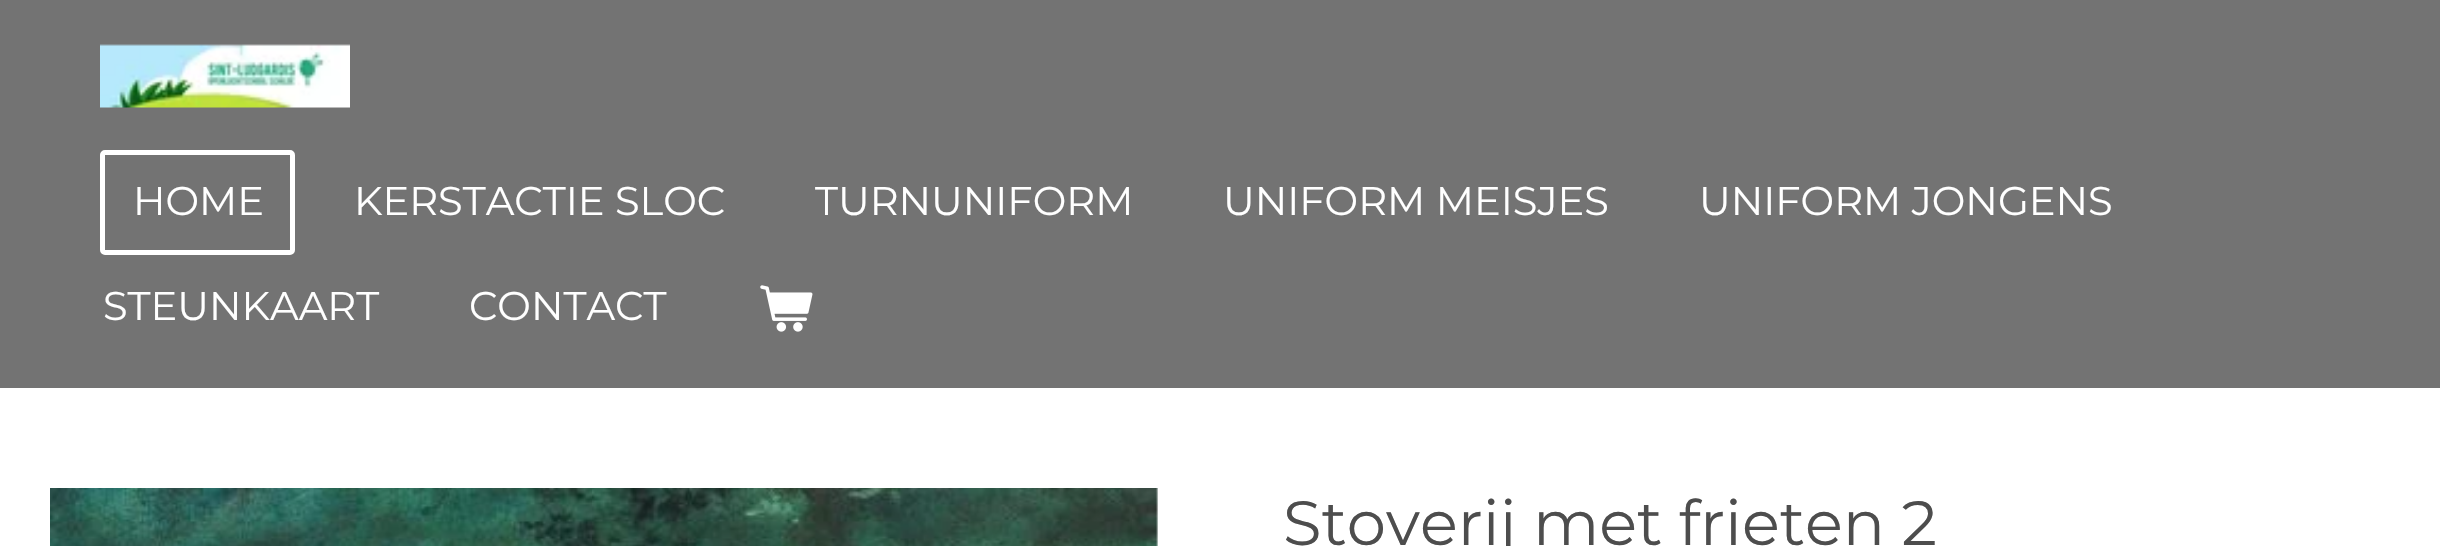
void draw(SkCanvas* canvas) {
	SkPaint fill;
	fill.setAntiAlias(true);
	auto makeFont = [&](const char* family, int weight, float size, bool italic = false) {
		SkFontStyle style(weight, SkFontStyle::kNormal_Width,
			italic ? SkFontStyle::kItalic_Slant : SkFontStyle::kUpright_Slant);
		SkFont result(fontMgr->matchFamilyStyle(family, style), size);
		result.setSubpixel(true);
		return result;
	};
	auto text = [&](const char* s, float x, float y, const SkFont& font) {
		canvas->drawString(s, x, y, font, fill);
	};
	auto box = [&](float l, float t, float r, float b) {
		canvas->drawRect(SkRect::MakeLTRB(l, t, r, b), fill);
	};
	auto picture = [&](const char* path, float l, float t, float r, float b) {
		auto image = SkImages::DeferredFromEncodedData(SkData::MakeFromFileName(path));
		canvas->drawImageRect(image, SkRect::MakeLTRB(l, t, r, b), SkSamplingOptions());
	};
	canvas->clear(0xFFFFFFFF);
	fill.setColor(0xFF737373);
	box(0, 0, 2440, 388);
	picture("image0.png", 100, 44, 350, 108);
	fill.setStyle(SkPaint::kStroke_Style);
	fill.setStrokeWidth(5);
	fill.setColor(0xFFFFFFFF);
	canvas->drawRoundRect(SkRect::MakeLTRB(102.5f, 152.5f, 292.5f, 252.5f), 2.5f, 2.5f, fill);
	picture("image1.png", 760, 285, 813, 332);
	picture("image2.png", 50, 488, 1158, 546);
	auto font1 = makeFont("Montserrat", 400, 40);
	fill.setStyle(SkPaint::kFill_Style);
	text("HOME", 133, 215, font1);
	text("KERSTACTIE SLOC", 354, 215, font1);
	text("TURNUNIFORM", 815, 215, font1);
	text("UNIFORM MEISJES", 1223, 215, font1);
	text("UNIFORM JONGENS", 1699, 215, font1);
	text("STEUNKAART", 103, 320, font1);
	text("CONTACT", 469, 320, font1);
	auto font2 = makeFont("Montserrat", 400, 62.5f);
	fill.setColor(0xFF4D4D4D);
	text("Stoverij met frieten 2", 1283, 545, font2);
}
